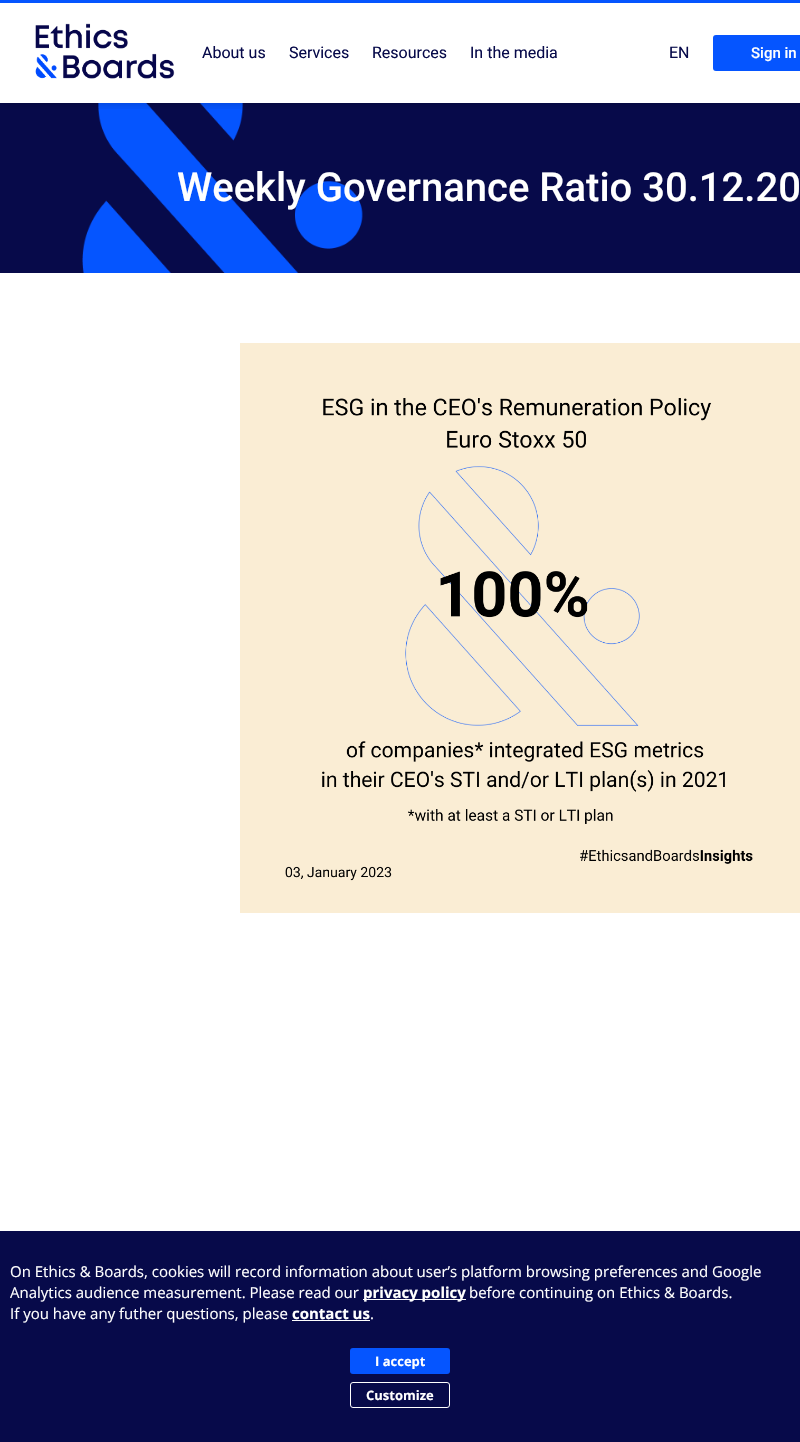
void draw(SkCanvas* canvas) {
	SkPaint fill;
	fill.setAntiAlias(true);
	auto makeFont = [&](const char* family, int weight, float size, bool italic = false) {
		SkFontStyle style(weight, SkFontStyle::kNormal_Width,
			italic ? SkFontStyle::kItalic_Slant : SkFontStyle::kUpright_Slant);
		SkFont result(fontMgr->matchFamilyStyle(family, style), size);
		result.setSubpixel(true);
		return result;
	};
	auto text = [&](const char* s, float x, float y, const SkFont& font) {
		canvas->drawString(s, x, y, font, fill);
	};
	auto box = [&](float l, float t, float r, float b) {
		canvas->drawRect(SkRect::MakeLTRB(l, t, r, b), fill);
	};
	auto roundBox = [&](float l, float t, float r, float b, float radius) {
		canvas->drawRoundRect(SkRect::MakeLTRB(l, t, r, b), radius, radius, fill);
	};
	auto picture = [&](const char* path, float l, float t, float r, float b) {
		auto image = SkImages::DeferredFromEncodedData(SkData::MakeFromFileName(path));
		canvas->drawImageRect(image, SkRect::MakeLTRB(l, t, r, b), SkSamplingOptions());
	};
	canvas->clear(0xFFFFFFFF);
	fill.setColor(0xFF070A4A);
	box(0, 103, 800, 273);
	picture("image1.png", 82, 103, 363, 273);
	canvas->save();
	canvas->clipRect(SkRect::MakeLTRB(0, 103, 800, 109));
	fill.setColor(0x33000000);
	fill.setMaskFilter(SkMaskFilter::MakeBlur(kNormal_SkBlurStyle, 5));
	canvas->drawRect(SkRect::MakeLTRB(0, 3, 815, 103), fill);
	fill.setMaskFilter(nullptr);
	canvas->restore();
	fill.setColor(0xFF0555FF);
	box(0, 0, 800, 3);
	picture("image0.png", 35, 23, 175, 79);
	roundBox(713, 35, 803, 71, 3);
	picture("image2.png", 240, 343, 800, 913);
	fill.setColor(0xFF070A4A);
	box(0, 1231, 800, 1442);
	fill.setColor(0xFFFFFFFF);
	box(363, 1299, 466, 1300);
	box(292, 1320, 370, 1321);
	fill.setColor(0xFF0555FF);
	roundBox(350, 1348, 450, 1374, 3);
	fill.setStyle(SkPaint::kStroke_Style);
	fill.setStrokeWidth(1);
	fill.setColor(0xFFFFFFFF);
	canvas->drawRoundRect(SkRect::MakeLTRB(350.5f, 1382.5f, 449.5f, 1407.5f), 2.5f, 2.5f, fill);
	auto font1 = makeFont("Roboto", 400, 16);
	fill.setStyle(SkPaint::kFill_Style);
	fill.setColor(0xFF070A4A);
	text("About us", 202, 58, font1);
	text("Services", 289, 58, font1);
	text("Resources", 372, 58, font1);
	text("In the media", 470, 58, font1);
	text("EN", 669, 58, font1);
	auto font2 = makeFont("Roboto", 500, 15);
	fill.setColor(0xFFFFFFFF);
	text("Sign in", 751, 58, font2);
	auto font3 = makeFont("Roboto", 500, 40);
	text("Weekly Governance Ratio 30.12.20", 177, 201, font3);
	auto font4 = makeFont("Open Sans", 400, 15);
	text("On Ethics & Boards, cookies will record information about user’s platform browsing preferences and Google", 10, 1277, font4);
	text("Analytics audience measurement. Please read our", 10, 1298, font4);
	auto font5 = makeFont("Open Sans", 700, 15);
	text("privacy policy", 363, 1298, font5);
	text("before continuing on Ethics & Boards.", 469, 1298, font4);
	text("If you have any futher questions, please", 10, 1319, font4);
	text("contact us", 292, 1319, font5);
	text(".", 370, 1319, font4);
	auto font6 = makeFont("Open Sans", 700, 13);
	text("I accept", 375, 1366, font6);
	text("Customize", 366, 1400, font6);
}
